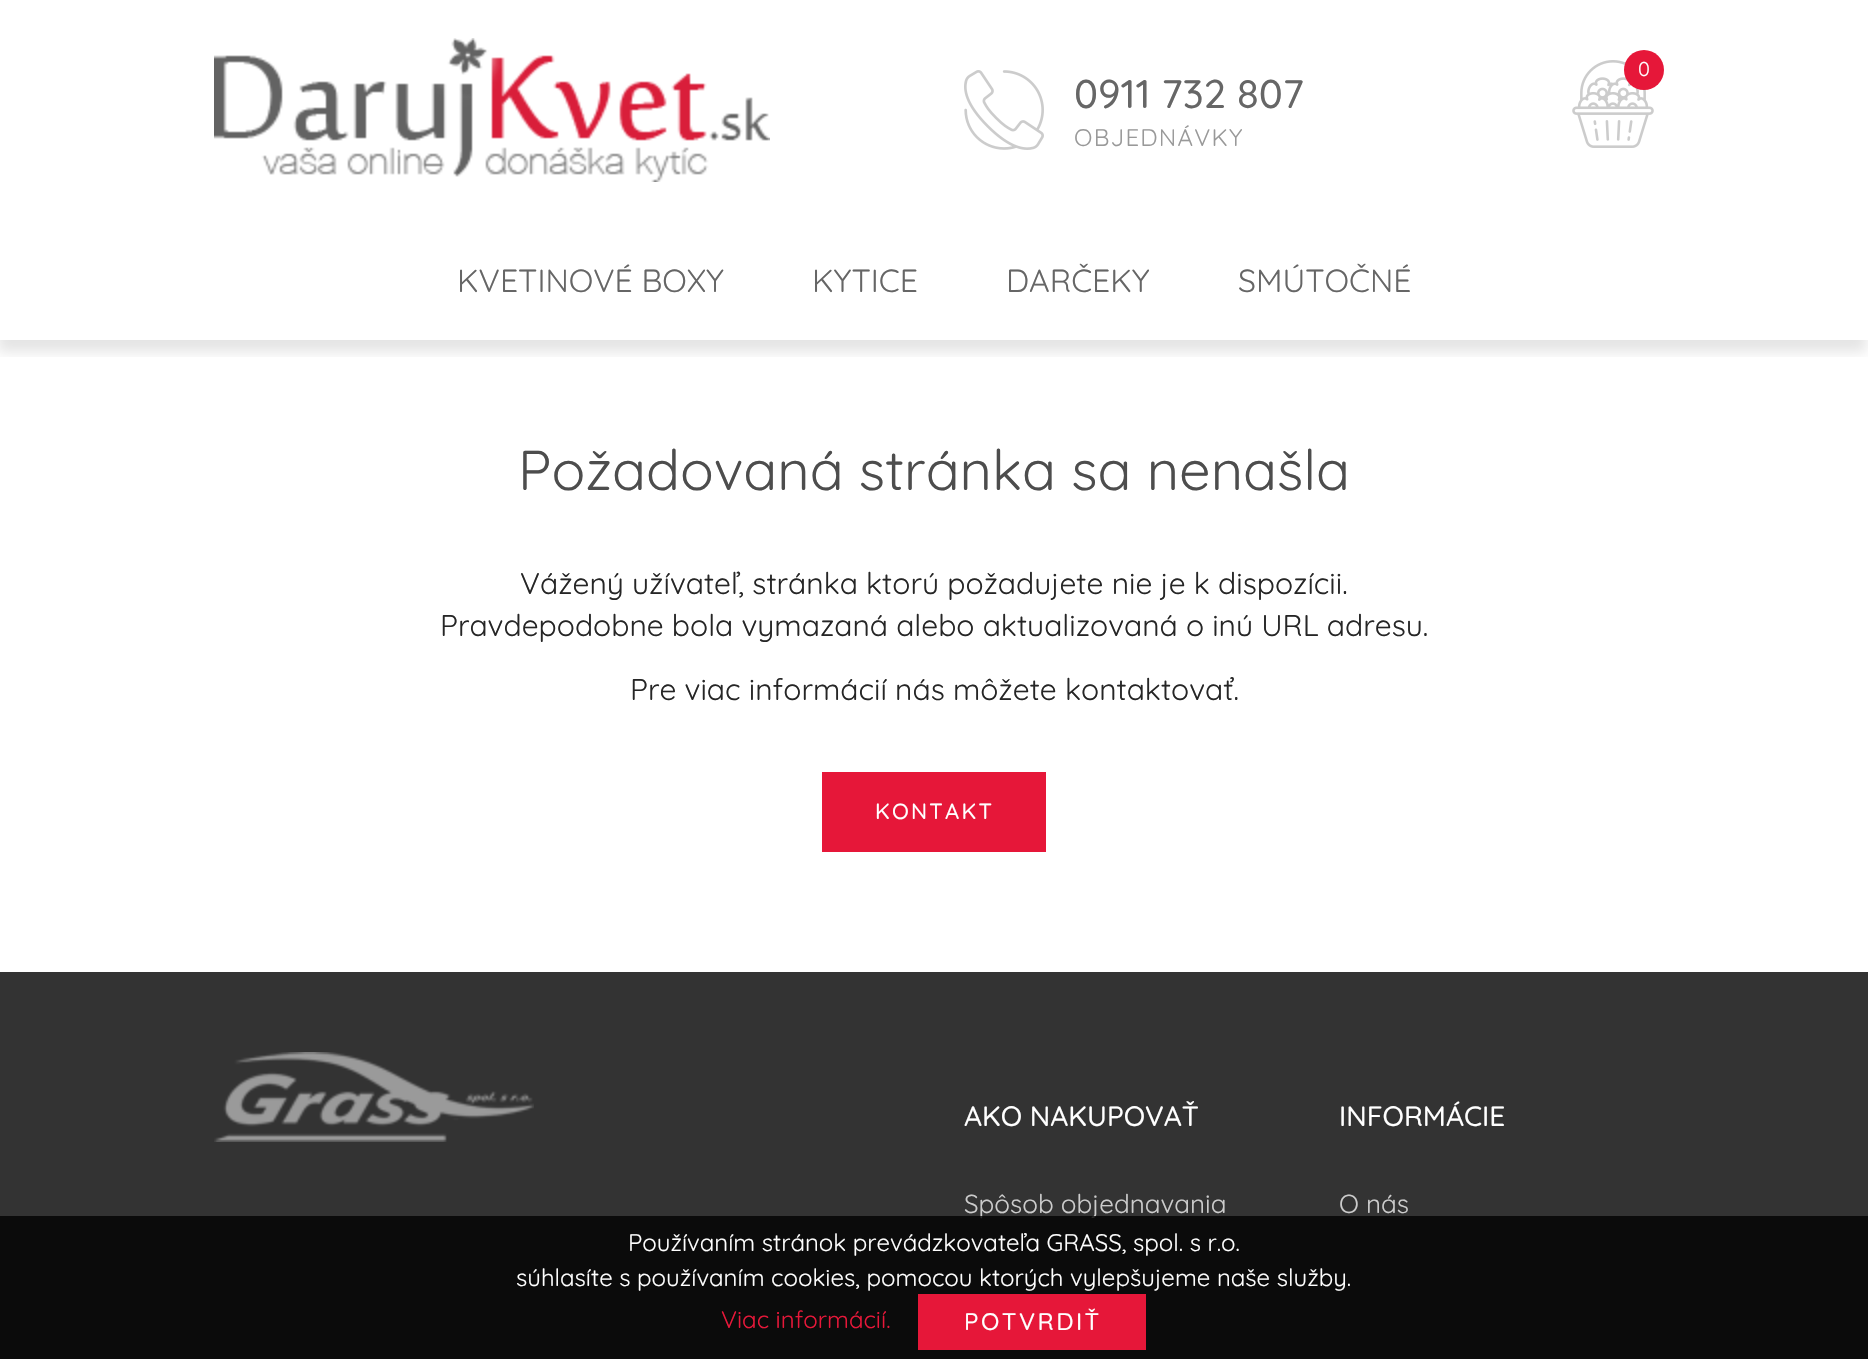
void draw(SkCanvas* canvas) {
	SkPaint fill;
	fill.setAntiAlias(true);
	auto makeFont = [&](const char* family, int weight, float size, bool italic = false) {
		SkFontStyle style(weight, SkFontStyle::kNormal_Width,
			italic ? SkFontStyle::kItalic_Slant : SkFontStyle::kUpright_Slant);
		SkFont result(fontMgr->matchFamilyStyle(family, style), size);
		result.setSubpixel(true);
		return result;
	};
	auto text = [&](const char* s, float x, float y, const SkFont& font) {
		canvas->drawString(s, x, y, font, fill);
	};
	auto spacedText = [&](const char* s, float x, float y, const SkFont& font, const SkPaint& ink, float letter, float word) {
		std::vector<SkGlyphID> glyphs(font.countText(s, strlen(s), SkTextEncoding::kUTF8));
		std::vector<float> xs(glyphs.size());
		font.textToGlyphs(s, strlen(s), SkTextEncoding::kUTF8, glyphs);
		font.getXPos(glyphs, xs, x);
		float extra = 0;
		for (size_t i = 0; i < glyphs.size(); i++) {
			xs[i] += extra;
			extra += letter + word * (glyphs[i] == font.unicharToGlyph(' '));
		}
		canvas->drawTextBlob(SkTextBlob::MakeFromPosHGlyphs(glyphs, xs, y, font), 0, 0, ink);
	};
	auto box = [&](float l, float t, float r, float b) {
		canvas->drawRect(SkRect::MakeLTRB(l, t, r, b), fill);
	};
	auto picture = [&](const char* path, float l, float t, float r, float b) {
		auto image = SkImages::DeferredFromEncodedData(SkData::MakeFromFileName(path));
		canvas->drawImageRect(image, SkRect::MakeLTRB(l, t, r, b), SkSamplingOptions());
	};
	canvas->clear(0xFFFFFFFF);
	canvas->save();
	canvas->clipRect(SkRect::MakeLTRB(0, 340, 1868, 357));
	fill.setColor(0x1A000000);
	fill.setMaskFilter(SkMaskFilter::MakeBlur(kNormal_SkBlurStyle, 6));
	canvas->drawRect(SkRect::MakeLTRB(-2, 12, 1866, 352), fill);
	fill.setMaskFilter(nullptr);
	canvas->restore();
	picture("image0.png", 214, 38, 770, 182);
	picture("image1.png", 1572, 60, 1654, 148);
	fill.setColor(0xFFE61739);
	canvas->drawCircle(1644, 70, 20, fill);
	picture("image2.png", 964, 70, 1044, 150);
	box(822, 772, 1046, 852);
	fill.setColor(0xFF333333);
	box(0, 972, 1868, 1359);
	picture("image3.png", 214, 1052, 534, 1142);
	auto font1 = makeFont("Quicksand", 400, 20);
	fill.setColor(0xFFFFFFFF);
	text("0", 1638, 76, font1);
	auto font2 = makeFont("Quicksand", 500, 40);
	fill.setColor(0xFF666666);
	text("0911 732 807", 1074, 108, font2);
	auto font3 = makeFont("Quicksand", 400, 24);
	fill.setColor(0xFF999999);
	spacedText("OBJEDNÁVKY", 1074, 146, font3, fill, 1.25f, 0);
	auto font4 = makeFont("Quicksand", 400, 32);
	fill.setColor(0xFF666666);
	text("KVETINOVÉ BOXY", 457, 292, font4);
	text("KYTICE", 812, 292, font4);
	text("DARČEKY", 1006, 292, font4);
	text("SMÚTOČNÉ", 1238, 292, font4);
	auto font5 = makeFont("Quicksand", 400, 56);
	fill.setColor(0xFF4D4D4D);
	text("Požadovaná stránka sa nenašla", 518, 490, font5);
	auto font6 = makeFont("Quicksand", 400, 30);
	fill.setColor(0xFF262626);
	text("Vážený užívateľ, stránka ktorú požadujete nie je k dispozícii.", 520, 594, font6);
	text("Pravdepodobne bola vymazaná alebo aktualizovaná o inú URL adresu.", 440, 636, font6);
	text("Pre viac informácií nás môžete kontaktovať.", 630, 700, font6);
	auto font7 = makeFont("Quicksand", 500, 22);
	fill.setColor(0xFFFFFFFF);
	spacedText("KONTAKT", 875, 819, font7, fill, 2.25f, 0);
	auto font8 = makeFont("Quicksand", 500, 28);
	text("AKO NAKUPOVAŤ", 964, 1126, font8);
	auto font9 = makeFont("Quicksand", 400, 26);
	fill.setColor(0xFFCCCCCC);
	text("Spôsob objednavania", 964, 1213, font9);
	fill.setColor(0xFFFFFFFF);
	text("INFORMÁCIE", 1339, 1126, font8);
	fill.setColor(0xFFCCCCCC);
	text("O nás", 1339, 1213, font9);
	fill.setColor(0xCC000000);
	box(0, 1216, 1868, 1359);
	fill.setColor(0xFFFFFFFF);
	text("Používaním stránok prevádzkovateľa GRASS, spol. s r.o.", 628, 1251, font3);
	text("súhlasíte s používaním cookies, pomocou ktorých vylepšujeme naše služby.", 516, 1286, font3);
	fill.setColor(0xFFE61739);
	text("Viac informácií.", 721, 1328, font3);
	box(918, 1294, 1146, 1350);
	auto font10 = makeFont("Quicksand", 500, 24);
	fill.setColor(0xFFFFFFFF);
	spacedText("POTVRDIŤ", 964, 1330, font10, fill, 2.5f, 0);
}
